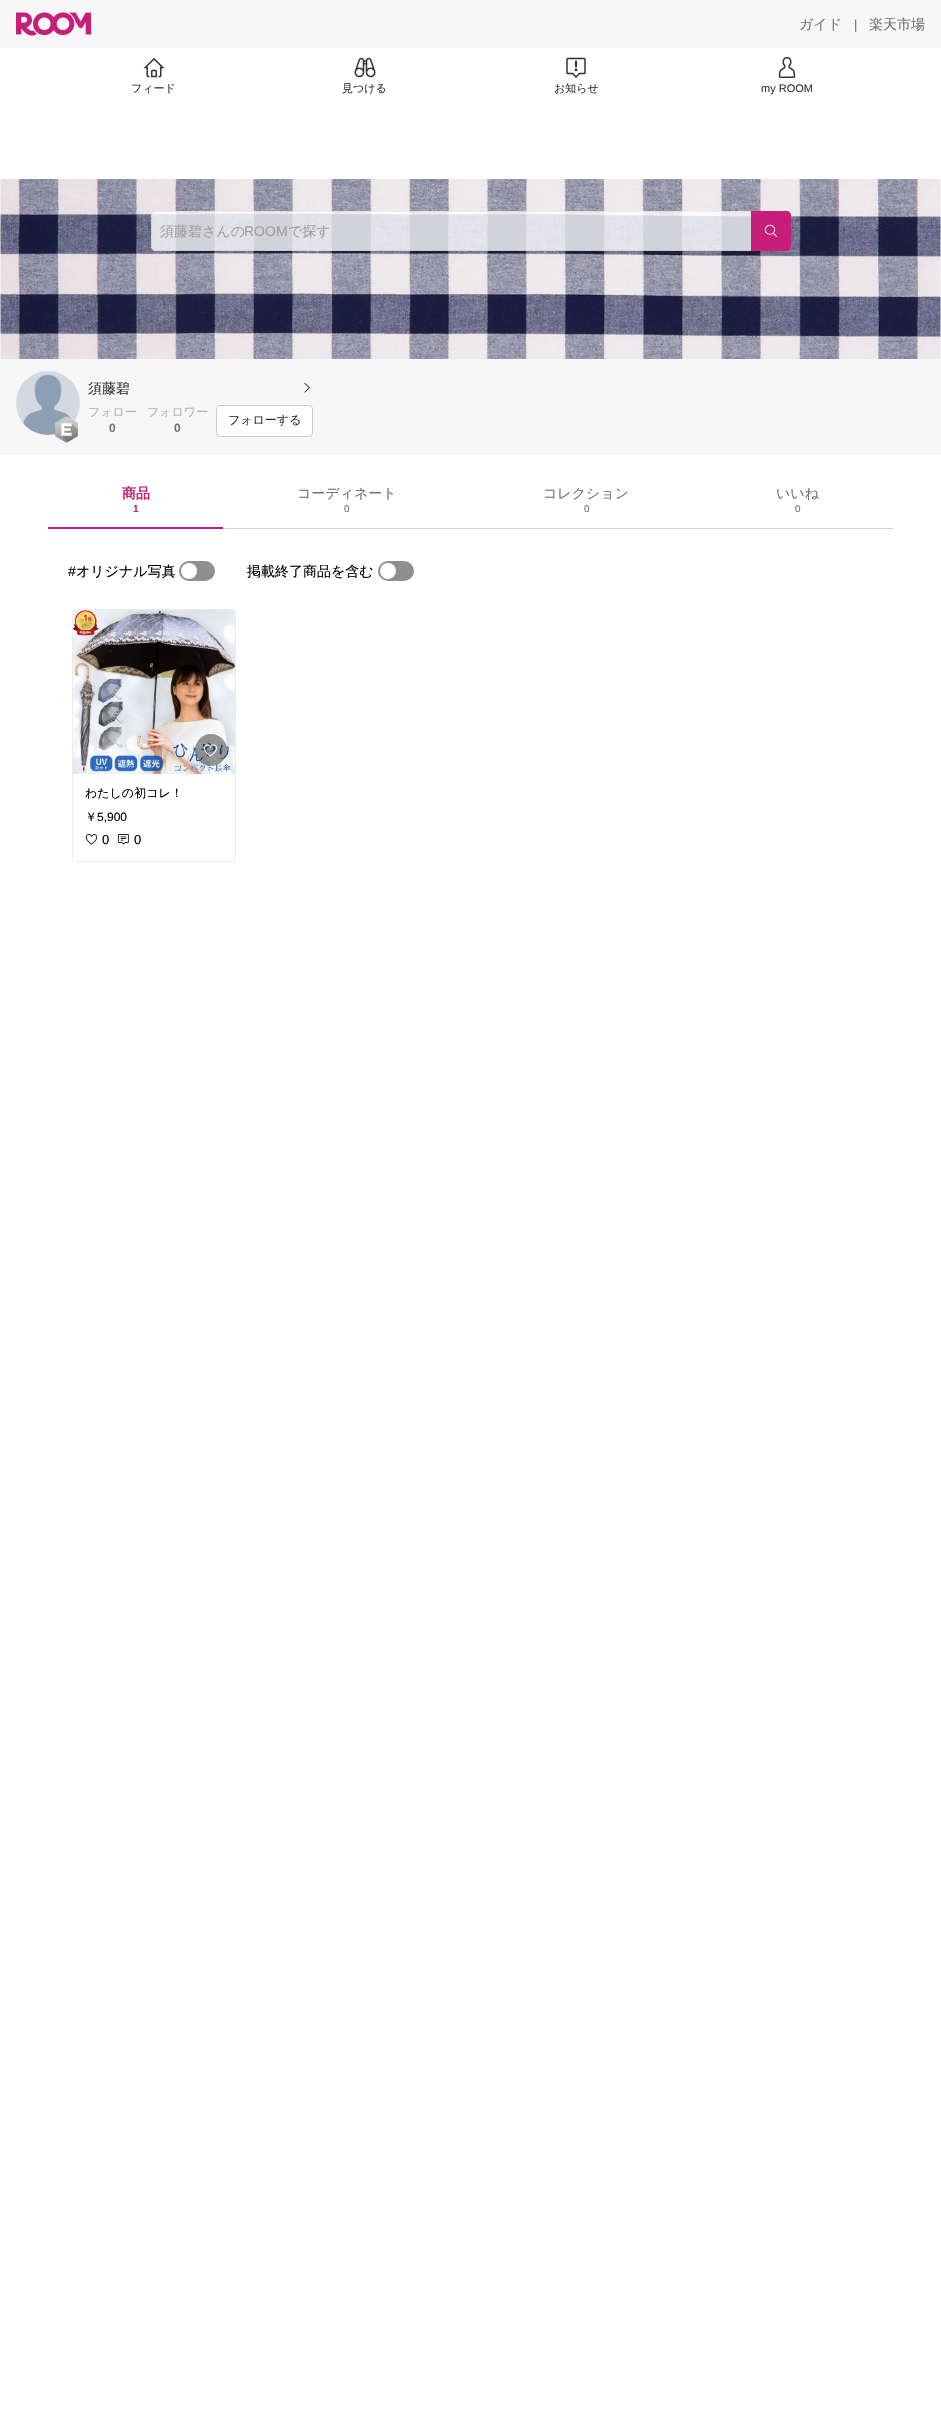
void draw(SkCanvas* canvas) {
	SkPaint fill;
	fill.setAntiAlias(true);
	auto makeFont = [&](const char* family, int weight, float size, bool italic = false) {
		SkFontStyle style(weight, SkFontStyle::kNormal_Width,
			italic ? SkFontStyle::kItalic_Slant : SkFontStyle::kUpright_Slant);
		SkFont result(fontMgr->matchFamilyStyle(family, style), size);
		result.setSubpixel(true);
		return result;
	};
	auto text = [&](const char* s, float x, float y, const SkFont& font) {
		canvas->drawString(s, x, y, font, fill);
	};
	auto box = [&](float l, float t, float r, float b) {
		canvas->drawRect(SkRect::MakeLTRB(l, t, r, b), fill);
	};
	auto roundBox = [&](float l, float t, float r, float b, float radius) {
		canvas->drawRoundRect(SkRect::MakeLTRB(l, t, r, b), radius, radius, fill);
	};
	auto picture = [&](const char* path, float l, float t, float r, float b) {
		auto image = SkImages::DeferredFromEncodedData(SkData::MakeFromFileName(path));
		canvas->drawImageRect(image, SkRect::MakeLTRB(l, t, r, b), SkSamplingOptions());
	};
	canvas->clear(0xFFFFFFFF);
	fill.setColor(0xFFF7F7F7);
	box(0, 0, 941, 48);
	picture("image0.png", 16, 12, 91, 36);
	picture("image1.png", 143, 57, 165, 78);
	picture("image2.png", 354, 57, 376, 78);
	picture("image3.png", 566, 57, 586, 78);
	picture("image4.png", 778, 57, 796, 78);
	picture("image5.png", 0, 179, 941, 359);
	fill.setColor(0xCCFFFFFF);
	canvas->drawPath(SkPathBuilder().moveTo(155, 211).lineTo(751, 211).lineTo(751, 251).lineTo(155, 251).cubicTo(153, 251, 151, 249, 151, 247).lineTo(151, 215).cubicTo(151, 213, 153, 211, 155, 211).close().detach(), fill);
	fill.setColor(0x0F000000);
	canvas->drawPath(SkPathBuilder(SkPathFillType::kEvenOdd).moveTo(155, 211).lineTo(751, 211).lineTo(751, 251).lineTo(155, 251).cubicTo(153, 251, 151, 249, 151, 247).lineTo(151, 215).cubicTo(151, 213, 153, 211, 155, 211).close().moveTo(155, 212).lineTo(751, 212).lineTo(751, 250).lineTo(155, 250).cubicTo(153, 250, 152, 249, 152, 247).lineTo(152, 215).cubicTo(152, 213, 153, 212, 155, 212).close().detach(), fill);
	fill.setColor(0xFFC61E79);
	canvas->drawPath(SkPathBuilder().moveTo(751, 211).lineTo(787, 211).cubicTo(789, 211, 791, 213, 791, 215).lineTo(791, 247).cubicTo(791, 249, 789, 251, 787, 251).lineTo(751, 251).close().detach(), fill);
	picture("image6.png", 764, 224, 778, 237);
	fill.setColor(0xFFF7F7F7);
	box(0, 359, 941, 455);
	picture("image7.png", 16, 371, 80, 435);
	picture("image8.png", 55, 416, 78, 443);
	picture("image9.png", 304, 383, 310, 393);
	fill.setColor(0xFFFFFFFF);
	roundBox(216, 405, 313, 437, 4);
	fill.setStyle(SkPaint::kStroke_Style);
	fill.setStrokeWidth(1);
	fill.setColor(0x33000000);
	canvas->drawRoundRect(SkRect::MakeLTRB(216.5f, 405.5f, 312.5f, 436.5f), 3.5f, 3.5f, fill);
	fill.setStyle(SkPaint::kFill_Style);
	fill.setColor(0xFFC61E79);
	box(48, 527, 223, 529);
	fill.setColor(0xFFD1D1D1);
	box(223, 528, 893, 529);
	fill.setColor(0xFF8F8F8F);
	canvas->drawRoundRect(SkRect::MakeLTRB(180, 562, 214, 580), 9, 9, fill);
	fill.setStyle(SkPaint::kStroke_Style);
	fill.setStrokeWidth(2);
	canvas->drawRoundRect(SkRect::MakeLTRB(180, 562, 214, 580), 9, 9, fill);
	fill.setStyle(SkPaint::kFill_Style);
	fill.setColor(0xFFFFFFFF);
	canvas->drawCircle(189, 571, 8, fill);
	fill.setColor(0xFF8F8F8F);
	canvas->drawRoundRect(SkRect::MakeLTRB(379, 562, 413, 580), 9, 9, fill);
	fill.setStyle(SkPaint::kStroke_Style);
	canvas->drawRoundRect(SkRect::MakeLTRB(379, 562, 413, 580), 9, 9, fill);
	fill.setStyle(SkPaint::kFill_Style);
	fill.setColor(0xFFFFFFFF);
	canvas->drawCircle(388, 571, 8, fill);
	fill.setStyle(SkPaint::kStroke_Style);
	fill.setStrokeWidth(1);
	fill.setColor(0xFFEBEBEB);
	canvas->drawRoundRect(SkRect::MakeLTRB(72.5f, 609.5f, 235.5f, 861.5f), 3.5f, 3.5f, fill);
	picture("image10.png", 73, 610, 235, 774);
	fill.setStyle(SkPaint::kFill_Style);
	fill.setColor(0x66000000);
	canvas->drawCircle(211, 750, 16, fill);
	picture("image11.png", 204, 744, 217, 757);
	picture("image12.png", 85, 834, 98, 845);
	picture("image13.png", 118, 834, 129, 845);
	auto font1 = makeFont("WenQuanYi Zen Hei", 500, 14);
	fill.setColor(0xFF717171);
	text("ガイド", 799, 29, font1);
	auto font2 = makeFont("Liberation Sans", 400, 13);
	text("|", 854, 29, font2);
	text("楽天市場", 869, 29, font1);
	auto font3 = makeFont("WenQuanYi Zen Hei", 500, 11);
	fill.setColor(0xFF333333);
	text("フィード", 131, 92, font3);
	text("見つける", 342, 92, font3);
	text("お知らせ", 554, 92, font3);
	auto font4 = makeFont("Liberation Sans", 400, 11);
	text("my ROOM", 761, 92, font4);
	fill.setColor(0xFF9E9E9F);
	text("須藤碧さんの", 160, 236, font1);
	auto font5 = makeFont("Liberation Sans", 400, 14);
	text("ROOM", 244, 236, font5);
	text("で探す", 288, 236, font1);
	fill.setColor(0xFF333333);
	text("須藤碧", 88, 393, font1);
	auto font6 = makeFont("WenQuanYi Zen Hei", 500, 12);
	fill.setColor(0xFFB2B2B2);
	text("フォロー", 88, 416, font6);
	auto font7 = makeFont("Liberation Sans", 700, 12);
	fill.setColor(0xFF717171);
	text("0", 109, 432, font7);
	fill.setColor(0xFFB2B2B2);
	text("フォロワー", 147, 416, font6);
	fill.setColor(0xFF717171);
	text("0", 174, 432, font7);
	fill.setColor(0xFF333333);
	text("フォローする", 228, 424, font6);
	auto font8 = makeFont("WenQuanYi Zen Hei", 700, 14);
	fill.setColor(0xFFC61E79);
	text("商品", 122, 498, font8);
	auto font9 = makeFont("Liberation Sans", 700, 10);
	text("1", 133, 512, font9);
	fill.setColor(0xFF717171);
	text("コーディネート", 297, 498, font1);
	auto font10 = makeFont("Liberation Sans", 400, 10);
	text("0", 344, 512, font10);
	text("コレクション", 543, 498, font1);
	text("0", 584, 512, font10);
	text("いいね", 776, 498, font1);
	text("0", 795, 512, font10);
	fill.setColor(0xFF000000);
	text("#", 68, 576, font5);
	text("オリジナル写真", 76, 576, font1);
	text("掲載終了商品を含む", 247, 576, font1);
	text("わたしの初コレ！", 85, 797, font6);
	text("￥", 85, 821, font6);
	auto font11 = makeFont("Liberation Sans", 400, 12);
	text("5,900", 97, 821, font11);
	text("0", 102, 844, font2);
	text("0", 134, 844, font2);
}
